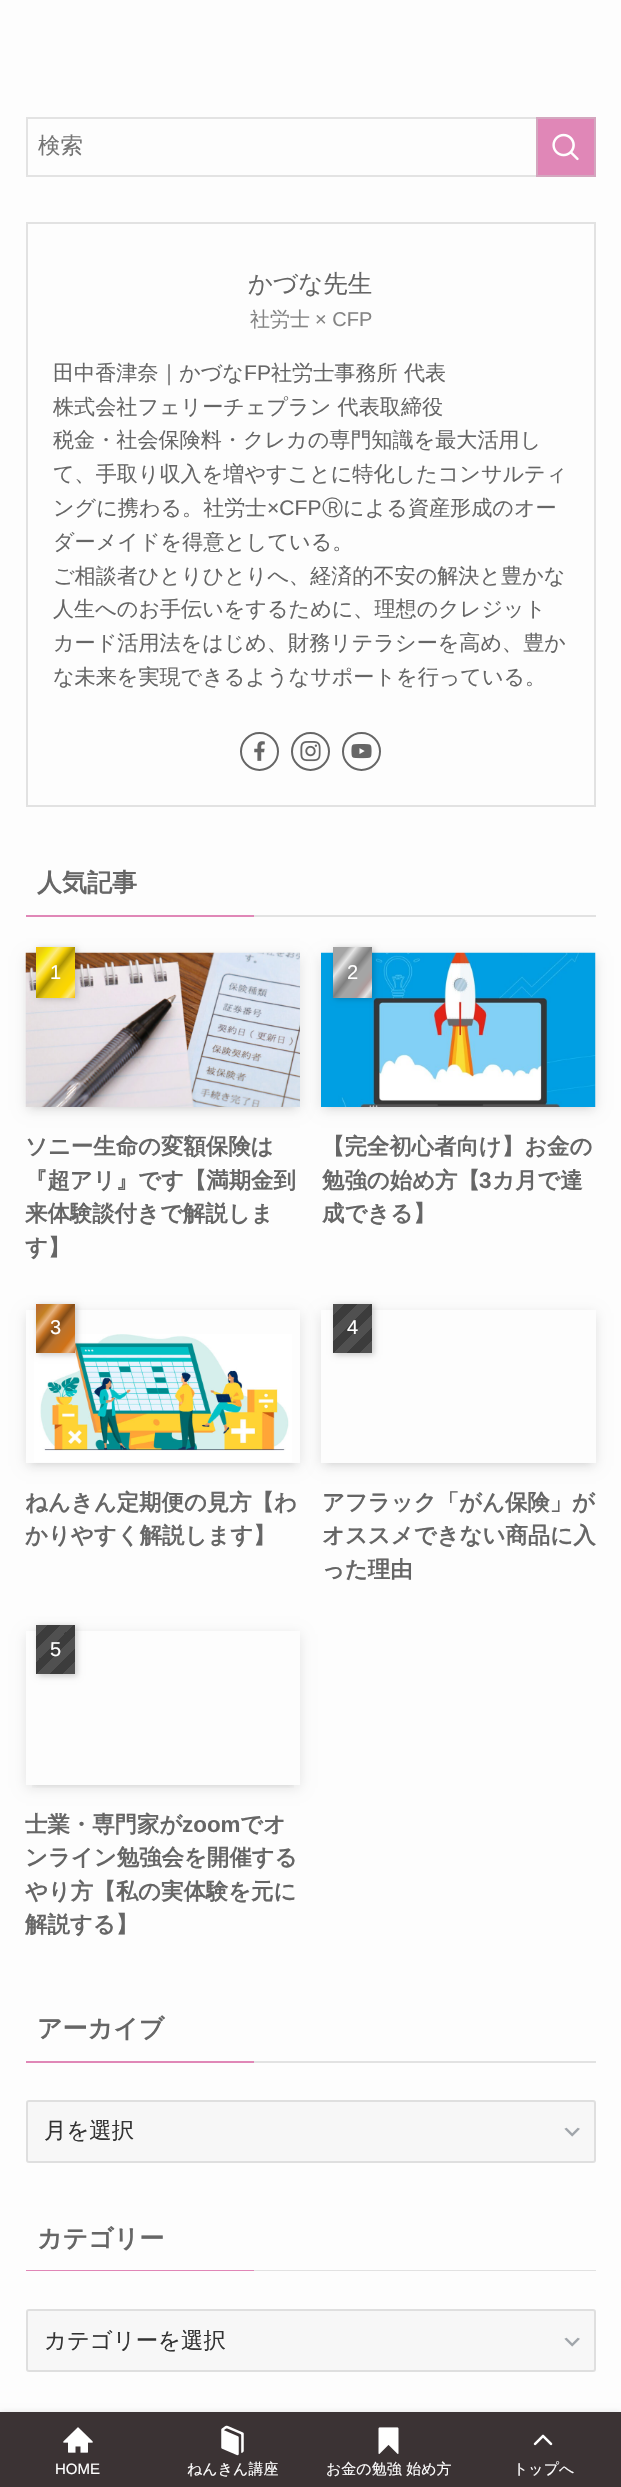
void draw(SkCanvas* canvas) {
	SkPaint fill;
	fill.setAntiAlias(true);
	auto makeFont = [&](const char* family, int weight, float size, bool italic = false) {
		SkFontStyle style(weight, SkFontStyle::kNormal_Width,
			italic ? SkFontStyle::kItalic_Slant : SkFontStyle::kUpright_Slant);
		SkFont result(fontMgr->matchFamilyStyle(family, style), size);
		result.setSubpixel(true);
		return result;
	};
	auto text = [&](const char* s, float x, float y, const SkFont& font) {
		canvas->drawString(s, x, y, font, fill);
	};
	auto box = [&](float l, float t, float r, float b) {
		canvas->drawRect(SkRect::MakeLTRB(l, t, r, b), fill);
	};
	auto roundBox = [&](float l, float t, float r, float b, float radius) {
		canvas->drawRoundRect(SkRect::MakeLTRB(l, t, r, b), radius, radius, fill);
	};
	auto picture = [&](const char* path, float l, float t, float r, float b) {
		auto image = SkImages::DeferredFromEncodedData(SkData::MakeFromFileName(path));
		canvas->drawImageRect(image, SkRect::MakeLTRB(l, t, r, b), SkSamplingOptions());
	};
	canvas->clear(0xFFFDFDFD);
	fill.setStyle(SkPaint::kStroke_Style);
	fill.setStrokeWidth(2);
	fill.setColor(0xFFE3E3E3);
	canvas->drawRect(SkRect::MakeLTRB(27, 118, 595, 176), fill);
	fill.setStyle(SkPaint::kFill_Style);
	fill.setColor(0xFFE087B7);
	canvas->drawRect(SkRect::MakeLTRB(537, 118, 595, 176), fill);
	fill.setStyle(SkPaint::kStroke_Style);
	fill.setColor(0xFFD4A7BF);
	canvas->drawRect(SkRect::MakeLTRB(537, 118, 595, 176), fill);
	picture("image0.png", 552, 133, 579, 161);
	fill.setColor(0xFFE2E2E2);
	canvas->drawRect(SkRect::MakeLTRB(27, 223, 595, 806), fill);
	fill.setColor(0xFF666666);
	canvas->drawCircle(259.5f, 751.5f, 18.5f, fill);
	picture("image1.png", 254, 741, 265, 761);
	canvas->drawCircle(310.5f, 751.5f, 18.5f, fill);
	picture("image2.png", 300, 741, 321, 762);
	canvas->drawCircle(361.5f, 751.5f, 18.5f, fill);
	picture("image3.png", 351, 744, 372, 759);
	fill.setStyle(SkPaint::kFill_Style);
	fill.setColor(0xFFE087B7);
	box(26, 915, 254, 917);
	fill.setColor(0xFFE2E2E2);
	box(254, 915, 596, 917);
	fill.setColor(0x1A000000);
	fill.setMaskFilter(SkMaskFilter::MakeBlur(kNormal_SkBlurStyle, 3));
	canvas->drawRect(SkRect::MakeLTRB(32, 965, 294, 1107), fill);
	fill.setMaskFilter(nullptr);
	fill.setMaskFilter(SkMaskFilter::MakeBlur(kNormal_SkBlurStyle, 6));
	canvas->drawRect(SkRect::MakeLTRB(26, 956, 300, 1110), fill);
	fill.setMaskFilter(nullptr);
	picture("image4.png", 25, 952, 300, 1107);
	fill.setColor(0x33000000);
	fill.setMaskFilter(SkMaskFilter::MakeBlur(kNormal_SkBlurStyle, 3));
	canvas->drawRect(SkRect::MakeLTRB(38, 948, 77, 999), fill);
	fill.setMaskFilter(nullptr);
	{
		const SkColor colors[] = {0xFFF7BF05, 0xFFFCEA7F, 0xFFFCD700, 0xFFF7D305, 0xFFEACA12, 0xFFAC9303, 0xFFF7D305, 0xFFFCEA7F, 0xFFF7E705, 0xFFEACA12, 0xFFF7BF05};
		const float stops[] = {0, 0.1f, 0.2f, 0.3f, 0.4f, 0.5f, 0.6f, 0.7f, 0.8f, 0.9f, 1};
		const SkPoint ends[] = {{80, 991}, {31, 953}};
		fill.setShader(SkGradientShader::MakeLinear(ends, colors, stops, 11, SkTileMode::kClamp));
		fill.setAlpha(255);
	}
	box(36, 947, 75, 998);
	fill.setShader(nullptr);
	fill.setColor(0x1A000000);
	fill.setMaskFilter(SkMaskFilter::MakeBlur(kNormal_SkBlurStyle, 3));
	canvas->drawRect(SkRect::MakeLTRB(327, 965, 590, 1107), fill);
	fill.setMaskFilter(nullptr);
	fill.setMaskFilter(SkMaskFilter::MakeBlur(kNormal_SkBlurStyle, 6));
	canvas->drawRect(SkRect::MakeLTRB(321, 956, 596, 1110), fill);
	fill.setMaskFilter(nullptr);
	picture("image5.png", 321, 952, 596, 1107);
	fill.setColor(0x33000000);
	fill.setMaskFilter(SkMaskFilter::MakeBlur(kNormal_SkBlurStyle, 3));
	canvas->drawRect(SkRect::MakeLTRB(335, 948, 374, 999), fill);
	fill.setMaskFilter(nullptr);
	{
		const SkColor colors[] = {0xFFA5A5A5, 0xFFE5E5E5, 0xFFAE9C9C, 0xFFA5A5A5, 0xFFA5A5A5, 0xFF7F7F7F, 0xFFA5A5A5, 0xFFE5E5E5, 0xFFA5A5A5, 0xFFA5A5A5};
		const float stops[] = {0, 0.1f, 0.2f, 0.3f, 0.4f, 0.5f, 0.6f, 0.7f, 0.8f, 1};
		const SkPoint ends[] = {{377, 991}, {328, 953}};
		fill.setShader(SkGradientShader::MakeLinear(ends, colors, stops, 10, SkTileMode::kClamp));
		fill.setAlpha(255);
	}
	box(333, 947, 372, 998);
	canvas->save();
	canvas->clipPath(SkPathBuilder(SkPathFillType::kEvenOdd).moveTo(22, 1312).lineTo(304, 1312).lineTo(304, 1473).lineTo(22, 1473).close().moveTo(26, 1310).lineTo(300, 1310).lineTo(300, 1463).lineTo(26, 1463).close().detach(), true);
	fill.setShader(nullptr);
	fill.setColor(0x1A000000);
	fill.setMaskFilter(SkMaskFilter::MakeBlur(kNormal_SkBlurStyle, 3));
	canvas->drawRect(SkRect::MakeLTRB(32, 1322, 294, 1463), fill);
	fill.setMaskFilter(nullptr);
	canvas->restore();
	canvas->save();
	canvas->clipPath(SkPathBuilder(SkPathFillType::kEvenOdd).moveTo(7, 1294).lineTo(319, 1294).lineTo(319, 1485).lineTo(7, 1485).close().moveTo(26, 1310).lineTo(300, 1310).lineTo(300, 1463).lineTo(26, 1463).close().detach(), true);
	fill.setMaskFilter(SkMaskFilter::MakeBlur(kNormal_SkBlurStyle, 6));
	canvas->drawRect(SkRect::MakeLTRB(26, 1313, 300, 1466), fill);
	fill.setMaskFilter(nullptr);
	canvas->restore();
	picture("image6.png", 34, 1334, 292, 1463);
	fill.setColor(0x33000000);
	fill.setMaskFilter(SkMaskFilter::MakeBlur(kNormal_SkBlurStyle, 3));
	canvas->drawRect(SkRect::MakeLTRB(38, 1305, 77, 1355), fill);
	fill.setMaskFilter(nullptr);
	{
		const SkColor colors[] = {0xFFC46522, 0xFFE8B27D, 0xFFD07217, 0xFFC47222, 0xFFB9722E, 0xFF834C17, 0xFFC47222, 0xFFE8B27D, 0xFFC48022, 0xFFB9722E, 0xFFC46522};
		const float stops[] = {0, 0.1f, 0.2f, 0.3f, 0.4f, 0.5f, 0.6f, 0.7f, 0.8f, 0.9f, 1};
		const SkPoint ends[] = {{80, 1347}, {31, 1309}};
		fill.setShader(SkGradientShader::MakeLinear(ends, colors, stops, 11, SkTileMode::kClamp));
		fill.setAlpha(255);
	}
	box(36, 1304, 75, 1353);
	fill.setShader(nullptr);
	fill.setColor(0x33000000);
	fill.setMaskFilter(SkMaskFilter::MakeBlur(kNormal_SkBlurStyle, 3));
	canvas->drawRect(SkRect::MakeLTRB(335, 1305, 374, 1355), fill);
	fill.setMaskFilter(nullptr);
	canvas->save();
	canvas->clipPath(SkPathBuilder(SkPathFillType::kEvenOdd).moveTo(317, 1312).lineTo(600, 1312).lineTo(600, 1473).lineTo(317, 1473).close().moveTo(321, 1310).lineTo(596, 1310).lineTo(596, 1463).lineTo(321, 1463).close().detach(), true);
	fill.setColor(0x1A000000);
	fill.setMaskFilter(SkMaskFilter::MakeBlur(kNormal_SkBlurStyle, 3));
	canvas->drawRect(SkRect::MakeLTRB(327, 1322, 590, 1463), fill);
	fill.setMaskFilter(nullptr);
	canvas->restore();
	canvas->save();
	canvas->clipPath(SkPathBuilder(SkPathFillType::kEvenOdd).moveTo(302, 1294).lineTo(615, 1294).lineTo(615, 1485).lineTo(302, 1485).close().moveTo(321, 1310).lineTo(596, 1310).lineTo(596, 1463).lineTo(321, 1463).close().detach(), true);
	fill.setMaskFilter(SkMaskFilter::MakeBlur(kNormal_SkBlurStyle, 6));
	canvas->drawRect(SkRect::MakeLTRB(321, 1313, 596, 1466), fill);
	fill.setMaskFilter(nullptr);
	canvas->restore();
	{
		const SkColor colors[] = {0xFF505050, 0xFF505050, 0xFF3C3C3C, 0xFF3C3C3C, 0xFF505050, 0xFF505050, 0xFF3C3C3C, 0xFF3C3C3C, 0xFF505050, 0xFF505050, 0xFF3C3C3C, 0xFF3C3C3C, 0xFF505050, 0xFF505050, 0xFF3C3C3C, 0xFF3C3C3C};
		const float stops[] = {0, 0.12f, 0.12f, 0.25f, 0.25f, 0.38f, 0.38f, 0.5f, 0.5f, 0.62f, 0.62f, 0.75f, 0.75f, 0.88f, 0.88f, 1};
		const SkPoint ends[] = {{375, 1350}, {324, 1299}};
		fill.setShader(SkGradientShader::MakeLinear(ends, colors, stops, 16, SkTileMode::kClamp));
		fill.setAlpha(255);
	}
	box(333, 1304, 372, 1353);
	fill.setShader(nullptr);
	fill.setColor(0x33000000);
	fill.setMaskFilter(SkMaskFilter::MakeBlur(kNormal_SkBlurStyle, 3));
	canvas->drawRect(SkRect::MakeLTRB(38, 1626, 77, 1676), fill);
	fill.setMaskFilter(nullptr);
	canvas->save();
	canvas->clipRect(SkRect::MakeLTRB(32, 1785, 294, 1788));
	fill.setColor(0x1A000000);
	fill.setMaskFilter(SkMaskFilter::MakeBlur(kNormal_SkBlurStyle, 3));
	canvas->drawRect(SkRect::MakeLTRB(32, 1643, 294, 1785), fill);
	fill.setMaskFilter(nullptr);
	canvas->restore();
	canvas->save();
	canvas->clipPath(SkPathBuilder(SkPathFillType::kEvenOdd).moveTo(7, 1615).lineTo(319, 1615).lineTo(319, 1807).lineTo(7, 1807).close().moveTo(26, 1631).lineTo(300, 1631).lineTo(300, 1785).lineTo(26, 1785).close().detach(), true);
	fill.setMaskFilter(SkMaskFilter::MakeBlur(kNormal_SkBlurStyle, 6));
	canvas->drawRect(SkRect::MakeLTRB(26, 1634, 300, 1788), fill);
	fill.setMaskFilter(nullptr);
	canvas->restore();
	{
		const SkColor colors[] = {0xFF505050, 0xFF505050, 0xFF3C3C3C, 0xFF3C3C3C, 0xFF505050, 0xFF505050, 0xFF3C3C3C, 0xFF3C3C3C, 0xFF505050, 0xFF505050, 0xFF3C3C3C, 0xFF3C3C3C, 0xFF505050, 0xFF505050, 0xFF3C3C3C, 0xFF3C3C3C};
		const float stops[] = {0, 0.12f, 0.12f, 0.25f, 0.25f, 0.38f, 0.38f, 0.5f, 0.5f, 0.62f, 0.62f, 0.75f, 0.75f, 0.88f, 0.88f, 1};
		const SkPoint ends[] = {{78, 1671}, {27, 1620}};
		fill.setShader(SkGradientShader::MakeLinear(ends, colors, stops, 16, SkTileMode::kClamp));
		fill.setAlpha(255);
	}
	box(36, 1625, 75, 1674);
	fill.setShader(nullptr);
	fill.setColor(0xFFE087B7);
	box(26, 2061, 254, 2063);
	fill.setColor(0xFFE2E2E2);
	box(254, 2061, 596, 2063);
	fill.setColor(0xFFF7F7F7);
	roundBox(26, 2100, 596, 2163, 3);
	picture("image7.png", 564, 2127, 580, 2137);
	fill.setStyle(SkPaint::kStroke_Style);
	fill.setColor(0x80C7C7C7);
	canvas->drawRoundRect(SkRect::MakeLTRB(27, 2101, 595, 2162), 2, 2, fill);
	fill.setStyle(SkPaint::kFill_Style);
	fill.setColor(0xFFE087B7);
	box(26, 2270, 254, 2271);
	fill.setColor(0xFFE2E2E2);
	box(254, 2270, 596, 2271);
	fill.setColor(0xFFF7F7F7);
	roundBox(26, 2309, 596, 2372, 3);
	picture("image7.png", 564, 2337, 580, 2347);
	fill.setStyle(SkPaint::kStroke_Style);
	fill.setColor(0x80C7C7C7);
	canvas->drawRoundRect(SkRect::MakeLTRB(27, 2310, 595, 2371), 2, 2, fill);
	fill.setStyle(SkPaint::kFill_Style);
	fill.setColor(0x1A000000);
	fill.setMaskFilter(SkMaskFilter::MakeBlur(kNormal_SkBlurStyle, 3));
	canvas->drawRect(SkRect::MakeLTRB(0, 2412, 621, 2487), fill);
	fill.setMaskFilter(nullptr);
	fill.setColor(0xFF3B3334);
	box(0, 2412, 621, 2487);
	picture("image8.png", 63, 2427, 93, 2453);
	picture("image9.png", 221, 2425, 244, 2456);
	picture("image10.png", 378, 2427, 399, 2454);
	picture("image11.png", 533, 2434, 553, 2446);
	auto font1 = makeFont("WenQuanYi Zen Hei", 500, 22.4f);
	fill.setColor(0xFF757575);
	text("検索", 38, 153, font1);
	auto font2 = makeFont("WenQuanYi Zen Hei", 500, 24.5f);
	fill.setColor(0xFF666666);
	text("かづな先生", 248, 292, font2);
	auto font3 = makeFont("WenQuanYi Zen Hei", 500, 20);
	fill.setColor(0xFF848484);
	text("社労士", 250, 326, font3);
	auto font4 = makeFont("Liberation Sans", 400, 20);
	text("× CFP", 315, 326, font4);
	auto font5 = makeFont("WenQuanYi Zen Hei", 500, 21.1f);
	fill.setColor(0xFF666666);
	text("田中香津奈｜かづな", 53, 380, font5);
	auto font6 = makeFont("Liberation Sans", 400, 21.1f);
	text("FP", 244, 380, font6);
	text("社労士事務所 代表", 271, 380, font5);
	text("株式会社フェリーチェプラン 代表取締役", 53, 414, font5);
	text("税金・社会保険料・クレカの専門知識を最大活用し", 53, 447, font5);
	text("て、手取り収入を増やすことに特化したコンサルティ", 53, 481, font5);
	text("ングに携わる。社労士", 53, 515, font5);
	text("×CFP", 267, 515, font6);
	text("Ⓡによる資産形成のオー", 322, 515, font5);
	text("ダーメイドを得意としている。", 53, 549, font5);
	text("ご相談者ひとりひとりへ、経済的不安の解決と豊かな", 53, 583, font5);
	text("人生へのお手伝いをするために、理想のクレジット", 53, 616, font5);
	text("カード活用法をはじめ、財務リテラシーを高め、豊か", 53, 650, font5);
	text("な未来を実現できるようなサポートを行っている。", 53, 684, font5);
	auto font7 = makeFont("WenQuanYi Zen Hei", 700, 25);
	text("人気記事", 37, 891, font7);
	fill.setColor(0xFFFFFFFF);
	text("1", 50, 979, font4);
	auto font8 = makeFont("WenQuanYi Zen Hei", 700, 22.4f);
	fill.setColor(0xFF666666);
	text("ソニー生命の変額保険は", 25, 1154, font8);
	text("『超アリ』です【満期金到", 25, 1188, font8);
	text("来体験談付きで解説しま", 25, 1221, font8);
	text("す】", 25, 1255, font8);
	fill.setColor(0xFFFFFFFF);
	text("2", 347, 979, font4);
	fill.setColor(0xFF666666);
	text("【完全初心者向け】お金の", 322, 1154, font8);
	text("勉強の始め方【", 322, 1188, font8);
	auto font9 = makeFont("Liberation Sans", 700, 22.4f);
	text("3", 479, 1188, font9);
	text("カ月で達", 492, 1188, font8);
	text("成できる】", 322, 1221, font8);
	fill.setColor(0xFFFFFFFF);
	text("3", 50, 1334, font4);
	fill.setColor(0xFF666666);
	text("ねんきん定期便の見方【わ", 25, 1510, font8);
	text("かりやすく解説します】", 25, 1543, font8);
	fill.setColor(0xFFFFFFFF);
	text("4", 347, 1334, font4);
	fill.setColor(0xFF666666);
	text("アフラック「がん保険」が", 322, 1510, font8);
	text("オススメできない商品に入", 322, 1543, font8);
	text("った理由", 322, 1577, font8);
	fill.setColor(0xFFFFFFFF);
	text("5", 50, 1656, font4);
	fill.setColor(0xFF666666);
	text("士業・専門家が", 25, 1832, font8);
	text("zoom", 182, 1832, font9);
	text("でオ", 240, 1832, font8);
	text("ンライン勉強会を開催する", 25, 1865, font8);
	text("やり方【私の実体験を元に", 25, 1899, font8);
	text("解説する】", 25, 1932, font8);
	text("アーカイブ", 37, 2037, font7);
	fill.setColor(0xFF333333);
	text("月を選択", 44, 2138, font1);
	fill.setColor(0xFF666666);
	text("カテゴリー", 37, 2247, font7);
	fill.setColor(0xFF333333);
	text("カテゴリーを選択", 44, 2348, font1);
	auto font10 = makeFont("Liberation Sans", 400, 15);
	fill.setColor(0xFFFFFFFF);
	text("HOME", 55, 2474, font10);
	auto font11 = makeFont("WenQuanYi Zen Hei", 500, 15);
	text("ねんきん講座", 187, 2474, font11);
	text("お金の勉強 始め方", 326, 2474, font11);
	text("トップへ", 513, 2474, font11);
}
